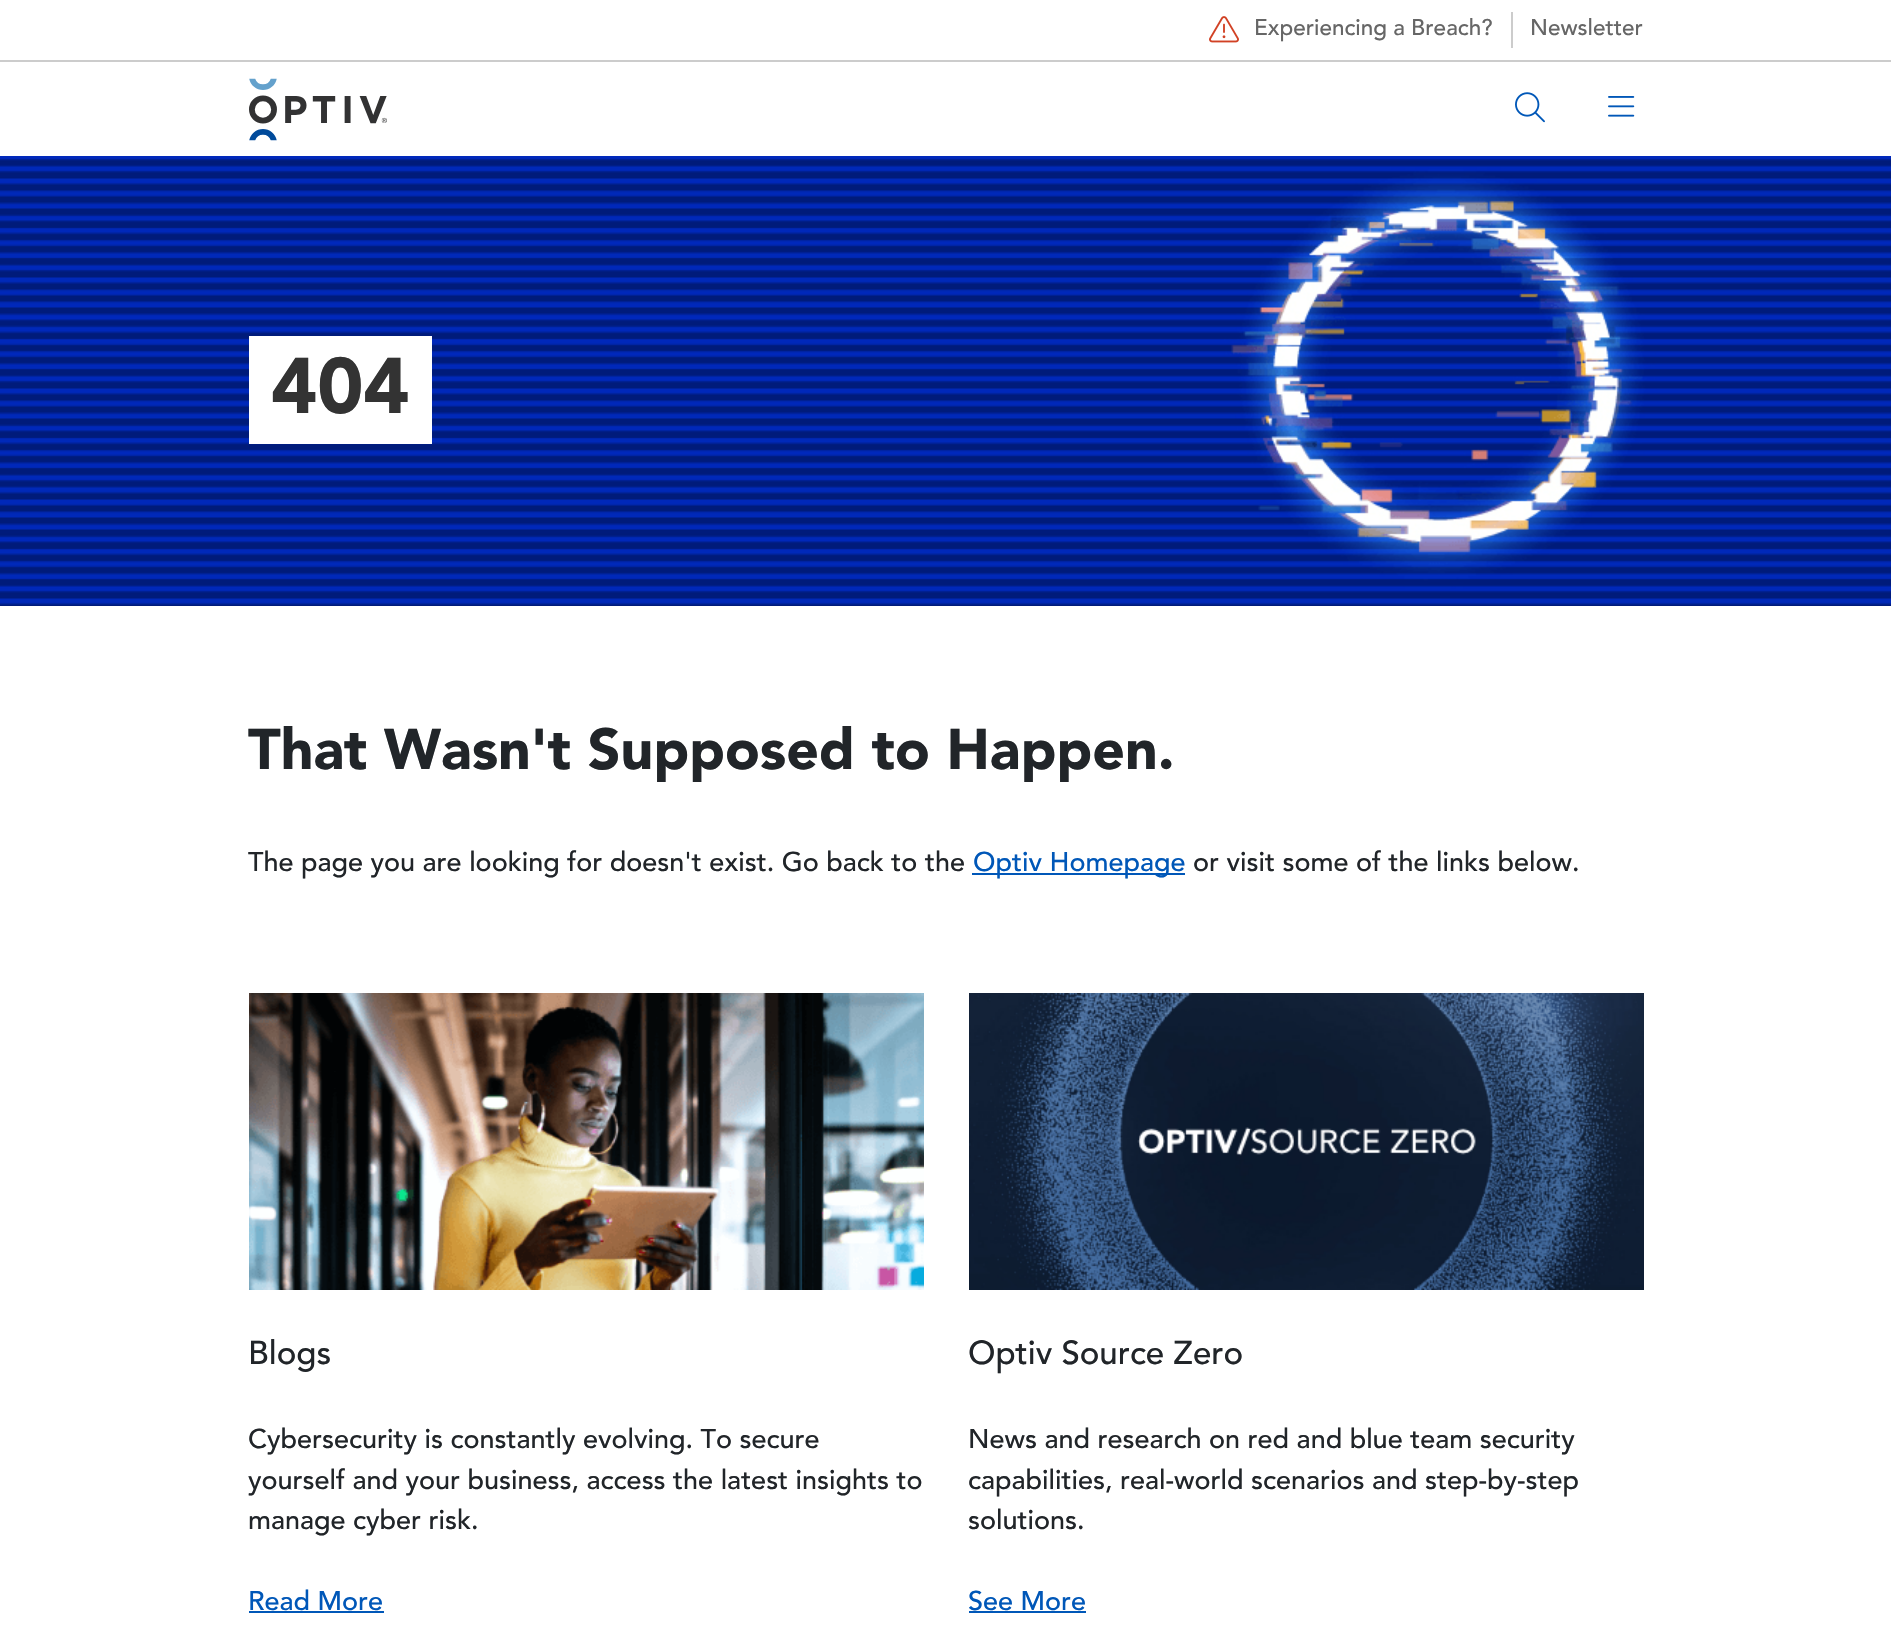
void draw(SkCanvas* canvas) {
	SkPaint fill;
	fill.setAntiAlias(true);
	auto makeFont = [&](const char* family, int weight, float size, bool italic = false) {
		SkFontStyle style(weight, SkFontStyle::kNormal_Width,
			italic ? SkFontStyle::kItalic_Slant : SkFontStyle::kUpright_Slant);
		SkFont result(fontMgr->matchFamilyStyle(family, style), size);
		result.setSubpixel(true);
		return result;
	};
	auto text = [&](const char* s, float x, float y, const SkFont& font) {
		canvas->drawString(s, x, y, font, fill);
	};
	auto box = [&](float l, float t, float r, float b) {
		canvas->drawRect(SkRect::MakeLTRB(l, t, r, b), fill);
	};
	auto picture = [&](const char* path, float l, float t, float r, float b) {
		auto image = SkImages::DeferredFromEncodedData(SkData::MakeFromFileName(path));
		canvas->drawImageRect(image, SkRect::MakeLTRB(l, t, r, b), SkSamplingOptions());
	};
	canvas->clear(0xFFFFFFFF);
	fill.setColor(0xFFCCCCCC);
	box(0, 60, 1891, 62);
	picture("image0.png", 1209, 16, 1239, 43);
	box(1511, 12, 1513, 48);
	picture("image1.png", 249, 78, 387, 141);
	picture("image2.png", 1515, 92, 1545, 123);
	picture("image3.png", 1608, 96, 1635, 117);
	picture("image4.png", 0, 156, 1891, 606);
	fill.setColor(0xFFFFFFFF);
	box(249, 336, 432, 444);
	fill.setColor(0xFF0057B8);
	box(972, 873, 1185, 875);
	picture("image5.png", 249, 993, 924, 1290);
	box(249, 1611, 384, 1613);
	picture("image6.png", 969, 993, 1644, 1290);
	box(969, 1611, 1086, 1613);
	auto font1 = makeFont("Avenir", 500, 22.5f);
	fill.setColor(0xFF666666);
	text("Experiencing a Breach?", 1254, 35, font1);
	text("Newsletter", 1530, 35, font1);
	auto font2 = makeFont("Avenir", 900, 78);
	fill.setColor(0xFF333333);
	text("404", 271, 413, font2);
	auto font3 = makeFont("Avenir", 900, 57);
	fill.setColor(0xFF212529);
	text("That Wasn't Supposed to Happen.", 248, 769, font3);
	auto font4 = makeFont("Avenir", 500, 27);
	text("The page you are looking for doesn't exist. Go back to the", 248, 871, font4);
	fill.setColor(0xFF0057B8);
	text("Optiv Homepage", 973, 871, font4);
	fill.setColor(0xFF212529);
	text("or visit some of the links below.", 1193, 871, font4);
	auto font5 = makeFont("Avenir", 500, 33);
	text("Blogs", 248, 1364, font5);
	text("Cybersecurity is constantly evolving. To secure", 248, 1448, font4);
	text("yourself and your business, access the latest insights to", 248, 1489, font4);
	text("manage cyber risk.", 248, 1529, font4);
	fill.setColor(0xFF0057B8);
	text("Read More", 248, 1610, font4);
	fill.setColor(0xFF212529);
	text("Optiv Source Zero", 968, 1364, font5);
	text("News and research on red and blue team security", 968, 1448, font4);
	text("capabilities, real-world scenarios and step-by-step", 968, 1489, font4);
	text("solutions.", 968, 1529, font4);
	fill.setColor(0xFF0057B8);
	text("See More", 968, 1610, font4);
}
